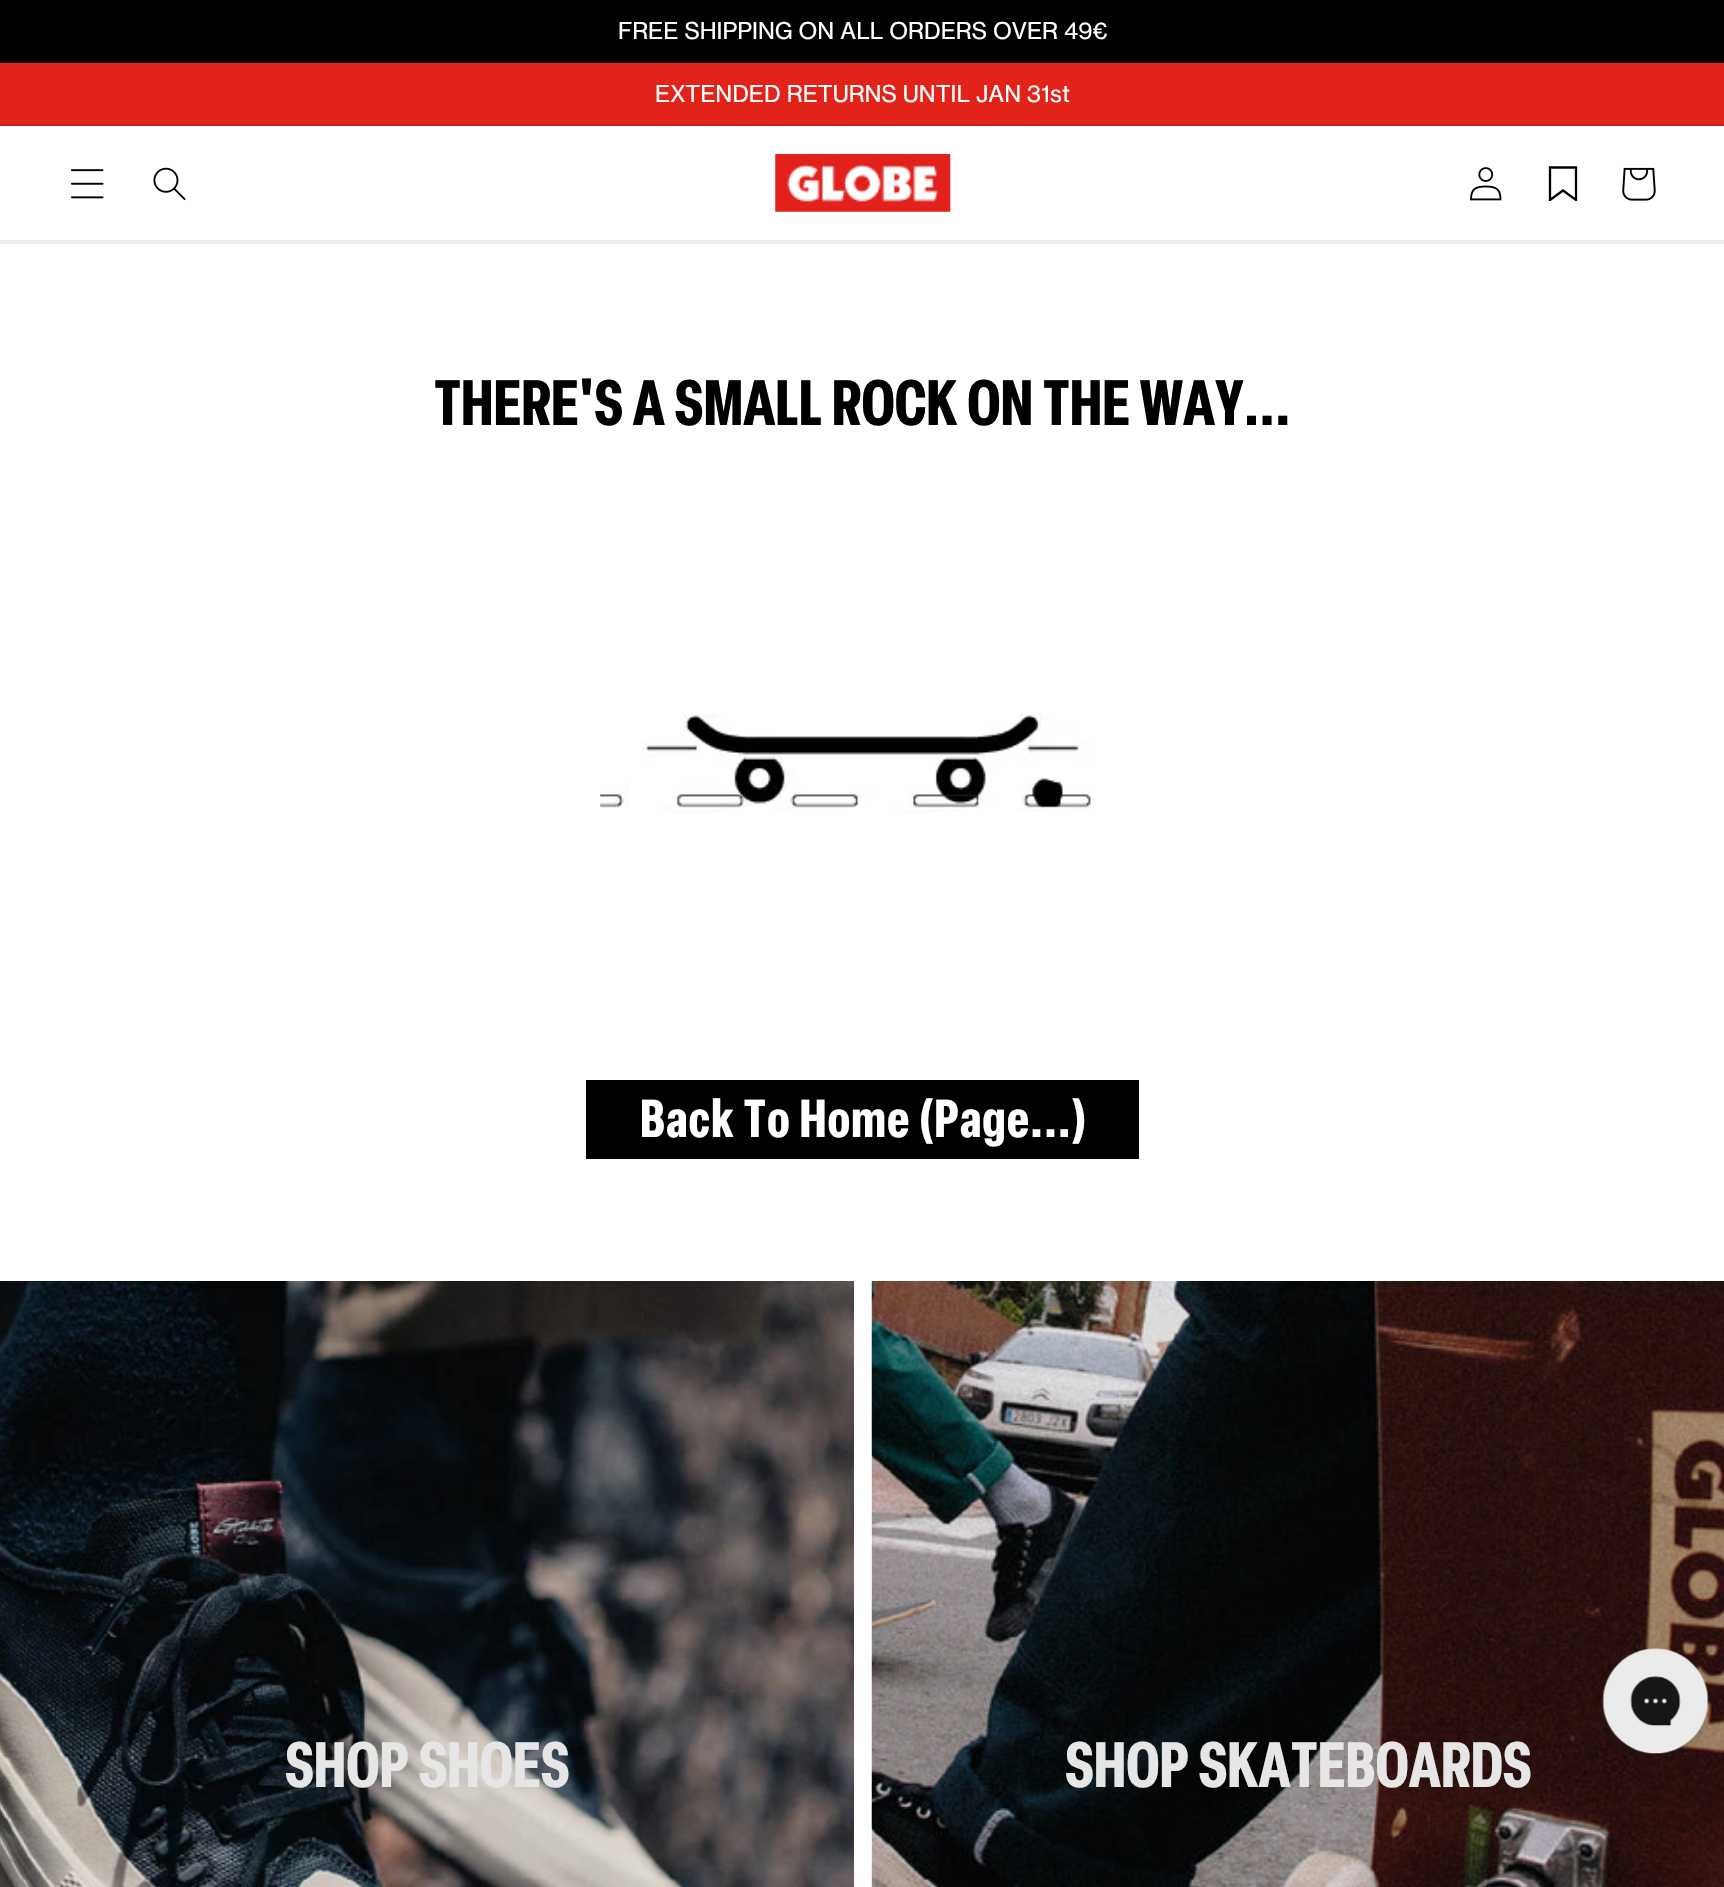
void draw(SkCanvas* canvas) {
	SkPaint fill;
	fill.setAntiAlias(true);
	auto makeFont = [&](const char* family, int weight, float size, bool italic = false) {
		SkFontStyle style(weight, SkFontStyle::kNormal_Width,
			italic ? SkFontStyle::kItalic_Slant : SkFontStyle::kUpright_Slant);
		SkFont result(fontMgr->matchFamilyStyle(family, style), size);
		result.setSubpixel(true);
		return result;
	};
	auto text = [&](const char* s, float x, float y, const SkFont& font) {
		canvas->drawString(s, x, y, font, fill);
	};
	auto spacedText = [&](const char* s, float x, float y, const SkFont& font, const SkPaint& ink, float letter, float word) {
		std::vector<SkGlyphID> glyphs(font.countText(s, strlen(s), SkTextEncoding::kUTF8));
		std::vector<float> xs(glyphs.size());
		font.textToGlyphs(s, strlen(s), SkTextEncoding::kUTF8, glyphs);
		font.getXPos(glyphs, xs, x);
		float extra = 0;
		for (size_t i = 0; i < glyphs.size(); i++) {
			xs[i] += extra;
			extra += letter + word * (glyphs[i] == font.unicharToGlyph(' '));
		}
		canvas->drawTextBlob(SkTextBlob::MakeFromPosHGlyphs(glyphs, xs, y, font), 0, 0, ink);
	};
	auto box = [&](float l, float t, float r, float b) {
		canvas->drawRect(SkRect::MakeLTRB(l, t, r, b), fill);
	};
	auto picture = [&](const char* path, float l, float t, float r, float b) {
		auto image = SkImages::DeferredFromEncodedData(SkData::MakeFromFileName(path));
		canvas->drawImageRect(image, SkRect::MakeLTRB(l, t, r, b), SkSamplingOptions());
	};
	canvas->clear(0xFFFFFFFF);
	fill.setColor(0xFFE2231A);
	box(0, 63, 1724, 124);
	fill.setColor(0xFF000000);
	box(0, 0, 1724, 63);
	fill.setColor(0xFFD02018);
	box(0, 124, 1724, 126);
	fill.setColor(0xFFEBEBEB);
	box(0, 240, 1724, 244);
	picture("image0.png", 71, 169, 104, 199);
	picture("image1.png", 153, 167, 186, 201);
	picture("image2.png", 775, 154, 951, 212);
	picture("image3.png", 1470, 167, 1502, 201);
	canvas->save();
	canvas->clipRect(SkRect::MakeLTRB(1545, 166, 1580, 201));
	fill.setStyle(SkPaint::kStroke_Style);
	fill.setStrokeWidth(2.3f);
	fill.setColor(0xFF000000);
	canvas->drawPath(SkPathBuilder().moveTo(1550, 167.5f).lineTo(1576, 167.5f).lineTo(1576, 200).lineTo(1563, 190.5f).lineTo(1550, 200).close().detach(), fill);
	canvas->restore();
	picture("image4.png", 1622, 167, 1656, 201);
	picture("image5.png", 600, 714, 1091, 812);
	fill.setStyle(SkPaint::kFill_Style);
	box(586, 1080, 1139, 1159);
	picture("image6.png", 0, 1281, 854, 1887);
	picture("image7.png", 871, 1281, 1724, 1887);
	picture("image8.png", 1602, 1648, 1710, 1754);
	auto font1 = makeFont("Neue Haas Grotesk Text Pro", 400, 22.75f);
	fill.setColor(0xFFFFFFFF);
	text("FREE SHIPPING ON ALL ORDERS OVER 49€", 618, 39, font1);
	text("EXTENDED RETURNS UNTIL JAN 31st", 655, 102, font1);
	auto font2 = makeFont("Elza", 700, 63);
	fill.setColor(0xFF000000);
	text("THERE'S A SMALL ROCK ON THE WAY...", 434, 425, font2);
	auto font3 = makeFont("Elza", 700, 52.5f);
	fill.setColor(0xFFFFFFFF);
	spacedText("Back To Home (Page...)", 640, 1137, font3, fill, 0.9f, 0);
	fill.setColor(0xFFE6E6E6);
	text("SHOP SHOES", 285, 1787, font2);
	text("SHOP SKATEBOARDS", 1065, 1787, font2);
}
